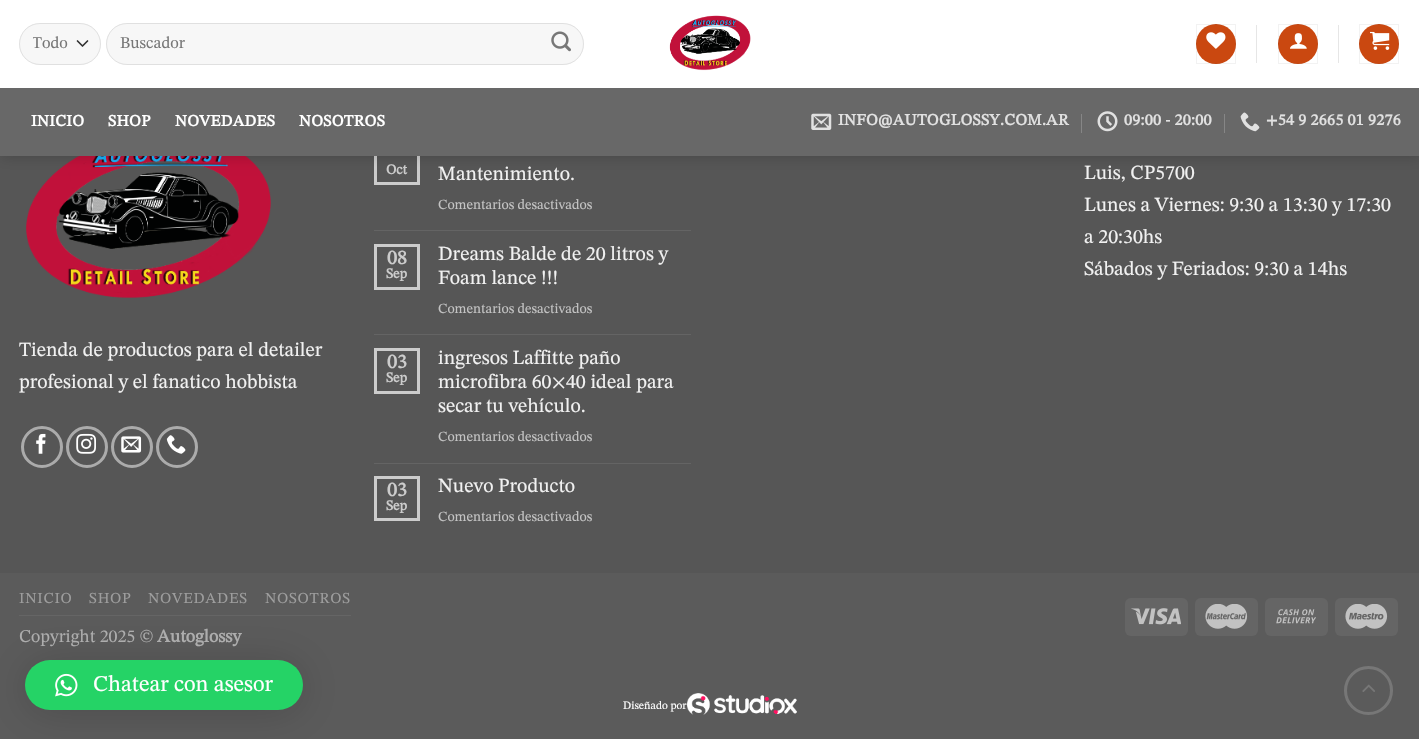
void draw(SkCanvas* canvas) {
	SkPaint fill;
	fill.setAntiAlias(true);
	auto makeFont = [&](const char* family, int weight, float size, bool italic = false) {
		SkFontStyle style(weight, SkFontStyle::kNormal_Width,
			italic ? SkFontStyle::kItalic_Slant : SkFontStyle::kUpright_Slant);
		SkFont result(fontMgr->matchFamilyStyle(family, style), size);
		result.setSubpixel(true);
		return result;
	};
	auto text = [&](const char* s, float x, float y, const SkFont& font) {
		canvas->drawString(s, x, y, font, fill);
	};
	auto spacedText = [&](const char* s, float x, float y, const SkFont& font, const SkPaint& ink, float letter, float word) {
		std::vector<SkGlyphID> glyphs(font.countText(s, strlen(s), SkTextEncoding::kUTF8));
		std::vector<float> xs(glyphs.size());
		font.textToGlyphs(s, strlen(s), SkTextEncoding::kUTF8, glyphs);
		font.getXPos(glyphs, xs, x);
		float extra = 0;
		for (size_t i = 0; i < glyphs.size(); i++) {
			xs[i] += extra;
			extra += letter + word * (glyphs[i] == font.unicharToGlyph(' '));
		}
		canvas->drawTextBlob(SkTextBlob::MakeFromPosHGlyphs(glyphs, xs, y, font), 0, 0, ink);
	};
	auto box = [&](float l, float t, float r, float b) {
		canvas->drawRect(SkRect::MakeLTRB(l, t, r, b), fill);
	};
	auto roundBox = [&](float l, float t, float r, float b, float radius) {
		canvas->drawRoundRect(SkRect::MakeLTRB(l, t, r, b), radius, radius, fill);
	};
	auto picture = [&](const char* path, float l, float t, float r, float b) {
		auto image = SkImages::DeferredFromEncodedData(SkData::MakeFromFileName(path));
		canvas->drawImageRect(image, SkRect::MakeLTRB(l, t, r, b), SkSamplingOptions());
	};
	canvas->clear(0xFF5B5B5B);
	fill.setColor(0xFF565656);
	box(0, 156, 1419, 573);
	fill.setStyle(SkPaint::kStroke_Style);
	fill.setStrokeWidth(3);
	fill.setColor(0xFFCCCCCC);
	canvas->drawRect(SkRect::MakeLTRB(375.5f, 141.5f, 418.5f, 183.5f), fill);
	picture("image8.png", 26, 156, 271, 298);
	fill.setStyle(SkPaint::kFill_Style);
	fill.setColor(0x26000000);
	fill.setMaskFilter(SkMaskFilter::MakeBlur(kNormal_SkBlurStyle, 6));
	canvas->drawRect(SkRect::MakeLTRB(1, 1, 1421, 158), fill);
	fill.setMaskFilter(nullptr);
	fill.setColor(0xFFFFFFFF);
	box(0, 0, 1419, 88);
	fill.setColor(0xFFF7F7F7);
	roundBox(19, 23, 101, 65, 21);
	fill.setStyle(SkPaint::kStroke_Style);
	fill.setStrokeWidth(1.7f);
	fill.setStrokeCap(SkPaint::kRound_Cap);
	fill.setStrokeJoin(SkPaint::kRound_Join);
	fill.setColor(0xFF333333);
	canvas->drawPath(SkPathBuilder().moveTo(77.5f, 41).lineTo(82.5f, 46).lineTo(87.5f, 41).detach(), fill);
	fill.setStrokeWidth(1);
	fill.setStrokeCap(SkPaint::kButt_Cap);
	fill.setStrokeJoin(SkPaint::kMiter_Join);
	fill.setColor(0x17000000);
	canvas->drawRoundRect(SkRect::MakeLTRB(19.5f, 23.5f, 100.5f, 64.5f), 20.5f, 20.5f, fill);
	fill.setStyle(SkPaint::kFill_Style);
	fill.setColor(0xFFF7F7F7);
	roundBox(106, 23, 584, 65, 21);
	fill.setStyle(SkPaint::kStroke_Style);
	fill.setColor(0x17000000);
	canvas->drawRoundRect(SkRect::MakeLTRB(106.5f, 23.5f, 583.5f, 64.5f), 20.5f, 20.5f, fill);
	picture("image0.png", 551, 31, 571, 52);
	picture("image1.png", 669, 15, 751, 71);
	fill.setStyle(SkPaint::kFill_Style);
	fill.setColor(0xFFCA4810);
	canvas->drawCircle(1216, 44, 20, fill);
	fill.setStyle(SkPaint::kStroke_Style);
	fill.setColor(0x0D000000);
	canvas->drawRect(SkRect::MakeLTRB(1196.5f, 24.5f, 1235.5f, 63.5f), fill);
	picture("image2.png", 1206, 32, 1226, 49);
	fill.setStyle(SkPaint::kFill_Style);
	fill.setColor(0xFFE6E6E6);
	box(1256, 25, 1257, 63);
	fill.setColor(0xFFCA4810);
	canvas->drawCircle(1298, 44, 20, fill);
	fill.setStyle(SkPaint::kStroke_Style);
	fill.setColor(0x0D000000);
	canvas->drawRect(SkRect::MakeLTRB(1278.5f, 24.5f, 1317.5f, 63.5f), fill);
	picture("image3.png", 1290, 33, 1307, 49);
	fill.setStyle(SkPaint::kFill_Style);
	fill.setColor(0xFFE6E6E6);
	box(1338, 25, 1339, 63);
	fill.setColor(0xFFCA4810);
	canvas->drawCircle(1379, 44, 20, fill);
	fill.setStyle(SkPaint::kStroke_Style);
	fill.setColor(0x0D000000);
	canvas->drawRect(SkRect::MakeLTRB(1359.5f, 24.5f, 1398.5f, 63.5f), fill);
	picture("image4.png", 1370, 31, 1390, 50);
	fill.setStyle(SkPaint::kFill_Style);
	fill.setColor(0xFF686868);
	box(0, 88, 1419, 156);
	picture("image5.png", 811, 113, 832, 130);
	fill.setColor(0xFF868686);
	box(1081, 114, 1082, 133);
	picture("image6.png", 1097, 111, 1118, 132);
	box(1224, 114, 1225, 133);
	picture("image7.png", 1240, 112, 1260, 132);
	fill.setColor(0xFF646464);
	box(374, 230, 691, 231);
	fill.setStyle(SkPaint::kStroke_Style);
	fill.setStrokeWidth(3);
	fill.setColor(0xFFCCCCCC);
	canvas->drawRect(SkRect::MakeLTRB(375.5f, 245.5f, 418.5f, 288.5f), fill);
	fill.setStyle(SkPaint::kFill_Style);
	fill.setColor(0xFF646464);
	box(374, 334, 691, 335);
	fill.setStyle(SkPaint::kStroke_Style);
	fill.setColor(0xFFCCCCCC);
	canvas->drawRect(SkRect::MakeLTRB(375.5f, 349.5f, 418.5f, 392.5f), fill);
	fill.setStyle(SkPaint::kFill_Style);
	fill.setColor(0xFF646464);
	box(374, 463, 691, 464);
	fill.setStyle(SkPaint::kStroke_Style);
	fill.setColor(0xFFCCCCCC);
	canvas->drawRect(SkRect::MakeLTRB(375.5f, 477.5f, 418.5f, 519.5f), fill);
	fill.setColor(0xFFABABAB);
	canvas->drawCircle(42, 447, 19.5f, fill);
	picture("image9.png", 36, 433, 46, 454);
	canvas->drawCircle(87, 447, 19.5f, fill);
	picture("image10.png", 76, 433, 96, 454);
	canvas->drawCircle(132, 447, 19.5f, fill);
	picture("image11.png", 121, 436, 142, 453);
	canvas->drawCircle(177, 447, 19.5f, fill);
	picture("image12.png", 166, 435, 186, 454);
	fill.setStyle(SkPaint::kFill_Style);
	fill.setColor(0xFF656565);
	box(19, 615, 351, 616);
	roundBox(1125, 598, 1188, 636, 6);
	picture("image13.png", 1131, 608, 1181, 625);
	roundBox(1195, 598, 1258, 636, 6);
	picture("image14.png", 1205, 604, 1248, 629);
	roundBox(1265, 598, 1328, 636, 6);
	picture("image15.png", 1276, 609, 1316, 624);
	roundBox(1335, 598, 1398, 636, 6);
	picture("image16.png", 1345, 604, 1388, 629);
	fill.setStyle(SkPaint::kStroke_Style);
	fill.setColor(0xFF777777);
	canvas->drawCircle(1368.5f, 690.5f, 23, fill);
	picture("image17.png", 1362, 684, 1375, 692);
	fill.setStyle(SkPaint::kFill_Style);
	fill.setColor(0x29000000);
	fill.setMaskFilter(SkMaskFilter::MakeBlur(kNormal_SkBlurStyle, 20));
	canvas->drawRoundRect(SkRect::MakeLTRB(25, 663, 303, 713), 25, 25, fill);
	fill.setMaskFilter(nullptr);
	fill.setColor(0xFF25D366);
	roundBox(25, 660, 303, 710, 25);
	picture("image18.png", 55, 673, 78, 697);
	picture("image19.png", 687, 693, 797, 715);
	canvas->save();
	canvas->clipRect(SkRect::MakeLTRB(33, 30, 78, 58));
	auto font1 = makeFont("STIX Two Math", 400, 16.5f);
	fill.setColor(0xFF777777);
	text("Todo", 32, 48, font1);
	canvas->restore();
	text("Buscador", 120, 48, font1);
	auto font2 = makeFont("STIX Two Math", 700, 16);
	fill.setColor(0xFFFFFFFF);
	spacedText("INICIO", 31, 126, font2, fill, 0.3f, 0);
	spacedText("SHOP", 108, 126, font2, fill, 0.3f, 0);
	spacedText("NOVEDADES", 175, 126, font2, fill, 0.3f, 0);
	spacedText("NOSOTROS", 299, 126, font2, fill, 0.3f, 0);
	fill.setColor(0xFFE1E1E1);
	spacedText("INFO@AUTOGLOSSY.COM.AR", 838, 125, font2, fill, 0.3f, 0);
	spacedText("09:00 - 20:00", 1124, 125, font2, fill, 0.3f, 0);
	spacedText("+54 9 2665 01 9276", 1266, 125, font2, fill, 0.3f, 0);
	auto font3 = makeFont("STIX Two Math", 700, 14);
	fill.setColor(0xFFCCCCCC);
	text("Oct", 386, 174, font3);
	auto font4 = makeFont("STIX Two Math", 400, 20);
	fill.setColor(0xFFF1F1F1);
	text("Mantenimiento.", 438, 180, font4);
	auto font5 = makeFont("STIX Two Math", 400, 14);
	fill.setColor(0xFFC3C3C3);
	text("Comentarios desactivados", 438, 209, font5);
	auto font6 = makeFont("STIX Two Math", 700, 20);
	fill.setColor(0xFFCCCCCC);
	text("08", 387, 264, font6);
	text("Sep", 386, 278, font3);
	fill.setColor(0xFFF1F1F1);
	text("Dreams Balde de 20 litros y", 438, 260, font4);
	text("Foam lance !!!", 438, 284, font4);
	fill.setColor(0xFFC3C3C3);
	text("Comentarios desactivados", 438, 313, font5);
	fill.setColor(0xFFCCCCCC);
	text("03", 387, 368, font6);
	text("Sep", 386, 382, font3);
	fill.setColor(0xFFF1F1F1);
	text("ingresos Laffitte paño", 438, 364, font4);
	text("microfibra 60×40 ideal para", 438, 388, font4);
	text("secar tu vehículo.", 438, 412, font4);
	fill.setColor(0xFFC3C3C3);
	text("Comentarios desactivados", 438, 441, font5);
	fill.setColor(0xFFCCCCCC);
	text("03", 387, 496, font6);
	text("Sep", 386, 510, font3);
	fill.setColor(0xFFF1F1F1);
	text("Nuevo Producto", 438, 492, font4);
	fill.setColor(0xFFC3C3C3);
	text("Comentarios desactivados", 438, 521, font5);
	fill.setColor(0xFFF1F1F1);
	text("Luis, CP5700", 1084, 179, font4);
	text("Lunes a Viernes: 9:30 a 13:30 y 17:30", 1084, 211, font4);
	text("a 20:30hs", 1084, 243, font4);
	text("Sábados y Feriados: 9:30 a 14hs", 1084, 275, font4);
	text("Tienda de productos para el detailer", 19, 356, font4);
	text("profesional y el fanatico hobbista", 19, 388, font4);
	auto font7 = makeFont("STIX Two Math", 400, 15.25f);
	fill.setColor(0xFF9D9D9D);
	spacedText("INICIO", 19, 603, font7, fill, 0.75f, 0);
	spacedText("SHOP", 89, 603, font7, fill, 0.75f, 0);
	spacedText("NOVEDADES", 148, 603, font7, fill, 0.75f, 0);
	spacedText("NOSOTROS", 265, 603, font7, fill, 0.75f, 0);
	auto font8 = makeFont("STIX Two Math", 400, 18);
	fill.setColor(0xFFADADAD);
	text("Copyright 2025 ©", 19, 642, font8);
	auto font9 = makeFont("STIX Two Math", 700, 18);
	text("Autoglossy", 157, 642, font9);
	auto font10 = makeFont("STIX Two Math", 400, 22.5f);
	fill.setColor(0xFFFFFFFF);
	text("Chatear con asesor", 93, 691, font10);
	auto font11 = makeFont("STIX Two Math", 400, 11.25f);
	text("Diseñado por", 623, 709, font11);
}
